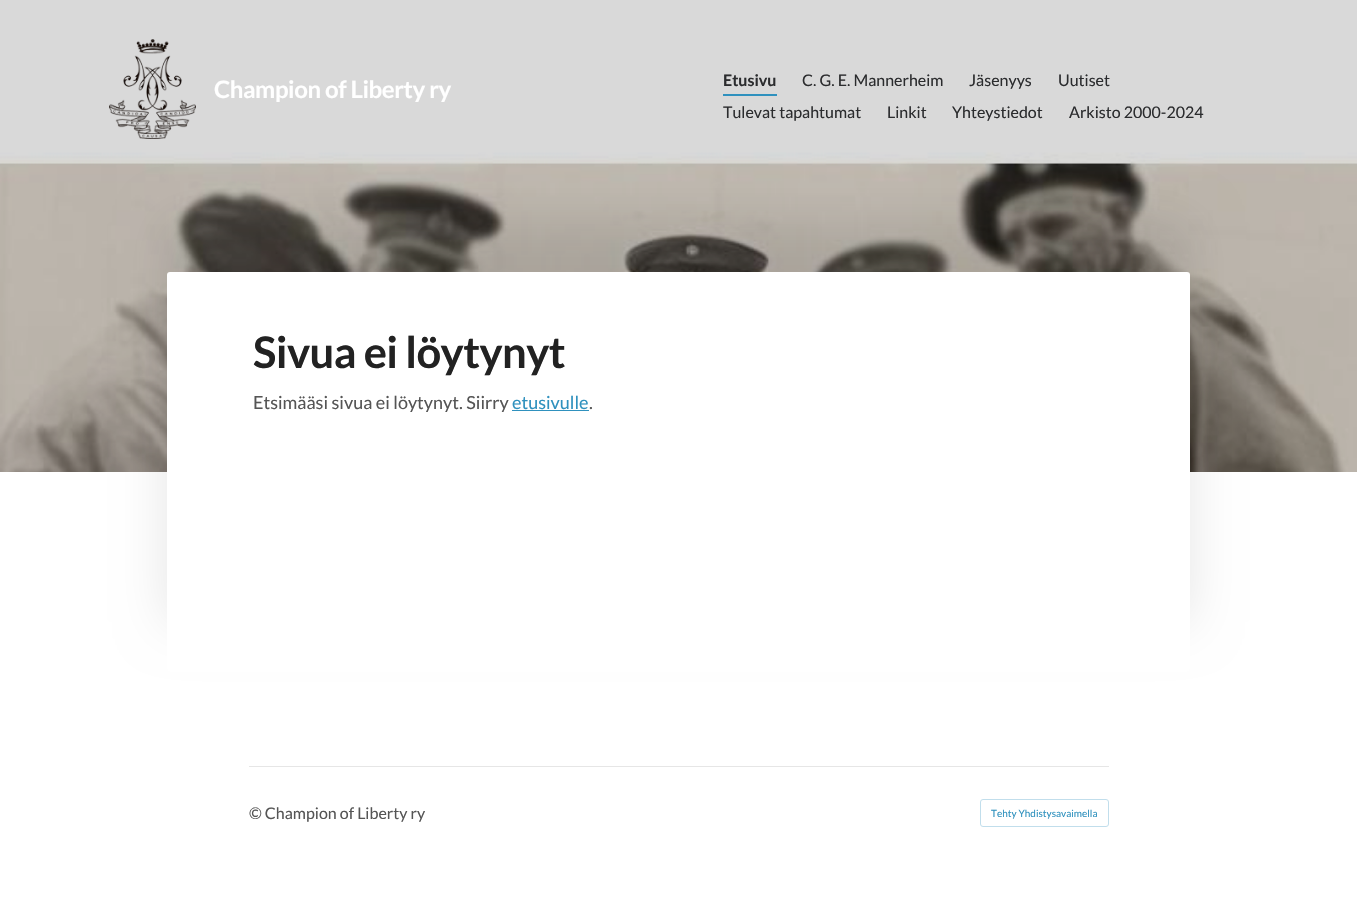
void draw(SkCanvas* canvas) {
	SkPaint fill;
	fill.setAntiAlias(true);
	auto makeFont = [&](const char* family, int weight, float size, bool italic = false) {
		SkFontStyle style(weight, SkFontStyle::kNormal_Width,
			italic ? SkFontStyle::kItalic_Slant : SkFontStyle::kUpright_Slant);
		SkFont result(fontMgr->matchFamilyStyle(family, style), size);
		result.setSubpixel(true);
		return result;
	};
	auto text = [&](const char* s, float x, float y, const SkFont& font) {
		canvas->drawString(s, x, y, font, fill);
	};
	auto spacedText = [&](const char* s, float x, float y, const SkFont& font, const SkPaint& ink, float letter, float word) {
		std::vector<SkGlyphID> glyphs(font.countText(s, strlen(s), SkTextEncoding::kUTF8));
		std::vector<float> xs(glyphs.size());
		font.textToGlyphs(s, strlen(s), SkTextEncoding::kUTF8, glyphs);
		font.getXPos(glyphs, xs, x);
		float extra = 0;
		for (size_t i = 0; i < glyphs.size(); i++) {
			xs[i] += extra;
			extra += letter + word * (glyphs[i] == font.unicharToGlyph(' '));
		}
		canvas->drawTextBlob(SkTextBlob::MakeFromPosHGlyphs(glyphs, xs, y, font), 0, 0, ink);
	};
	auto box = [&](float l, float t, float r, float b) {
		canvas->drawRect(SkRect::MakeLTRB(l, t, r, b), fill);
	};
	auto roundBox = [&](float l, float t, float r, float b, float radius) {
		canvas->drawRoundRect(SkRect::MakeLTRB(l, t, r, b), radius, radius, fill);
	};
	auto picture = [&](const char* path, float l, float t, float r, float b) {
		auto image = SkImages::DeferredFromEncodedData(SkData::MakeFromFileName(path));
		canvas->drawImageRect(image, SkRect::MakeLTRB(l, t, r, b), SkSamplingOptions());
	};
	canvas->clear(0xFFFFFFFF);
	picture("image0.png", 0, 0, 1357, 472);
	picture("image1.png", 109, 39, 196, 139);
	fill.setColor(0xFF2F91BE);
	box(723, 94, 777, 96);
	fill.setColor(0x1A000000);
	fill.setMaskFilter(SkMaskFilter::MakeBlur(kNormal_SkBlurStyle, 25));
	canvas->drawRoundRect(SkRect::MakeLTRB(167, 222, 1190, 622), 3, 3, fill);
	fill.setMaskFilter(nullptr);
	fill.setColor(0xFFFFFFFF);
	roundBox(167, 272, 1190, 672, 3);
	fill.setColor(0xFF2F91BE);
	box(512, 410, 589, 411);
	fill.setColor(0xFFE6E6E6);
	box(249, 766, 1109, 767);
	fill.setStyle(SkPaint::kStroke_Style);
	fill.setStrokeWidth(1);
	fill.setColor(0xFFC1DEEC);
	canvas->drawRoundRect(SkRect::MakeLTRB(980.5f, 799.5f, 1108.5f, 826.5f), 2.5f, 2.5f, fill);
	auto font1 = makeFont("Lato", 700, 24);
	fill.setStyle(SkPaint::kFill_Style);
	fill.setColor(0xFFFFFFFF);
	spacedText("Champion of Liberty ry", 214, 98, font1, fill, -0.4f, 0);
	auto font2 = makeFont("Lato", 700, 16);
	fill.setColor(0xFF2B2C2E);
	text("Etusivu", 723, 86, font2);
	auto font3 = makeFont("Lato", 400, 16);
	text("C. G. E. Mannerheim", 802, 86, font3);
	text("Jäsenyys", 969, 86, font3);
	text("Uutiset", 1058, 86, font3);
	text("Tulevat tapahtumat", 723, 118, font3);
	text("Linkit", 887, 118, font3);
	text("Yhteystiedot", 952, 118, font3);
	text("Arkisto 2000-2024", 1069, 118, font3);
	auto font4 = makeFont("Lato", 700, 43.5f);
	fill.setColor(0xFF222222);
	spacedText("Sivua ei löytynyt", 253, 368, font4, fill, -0.6f, 0);
	auto font5 = makeFont("Lato", 400, 18);
	fill.setColor(0xFF555555);
	text("Etsimääsi sivua ei löytynyt. Siirry", 253, 409, font5);
	fill.setColor(0xFF2F91BE);
	text("etusivulle", 512, 409, font5);
	fill.setColor(0xFF555555);
	text(".", 589, 409, font5);
	text("© Champion of Liberty ry", 249, 819, font3);
	auto font6 = makeFont("Lato", 400, 10);
	fill.setColor(0xFF2F91BE);
	text("Tehty Yhdistysavaimella", 991, 817, font6);
}
